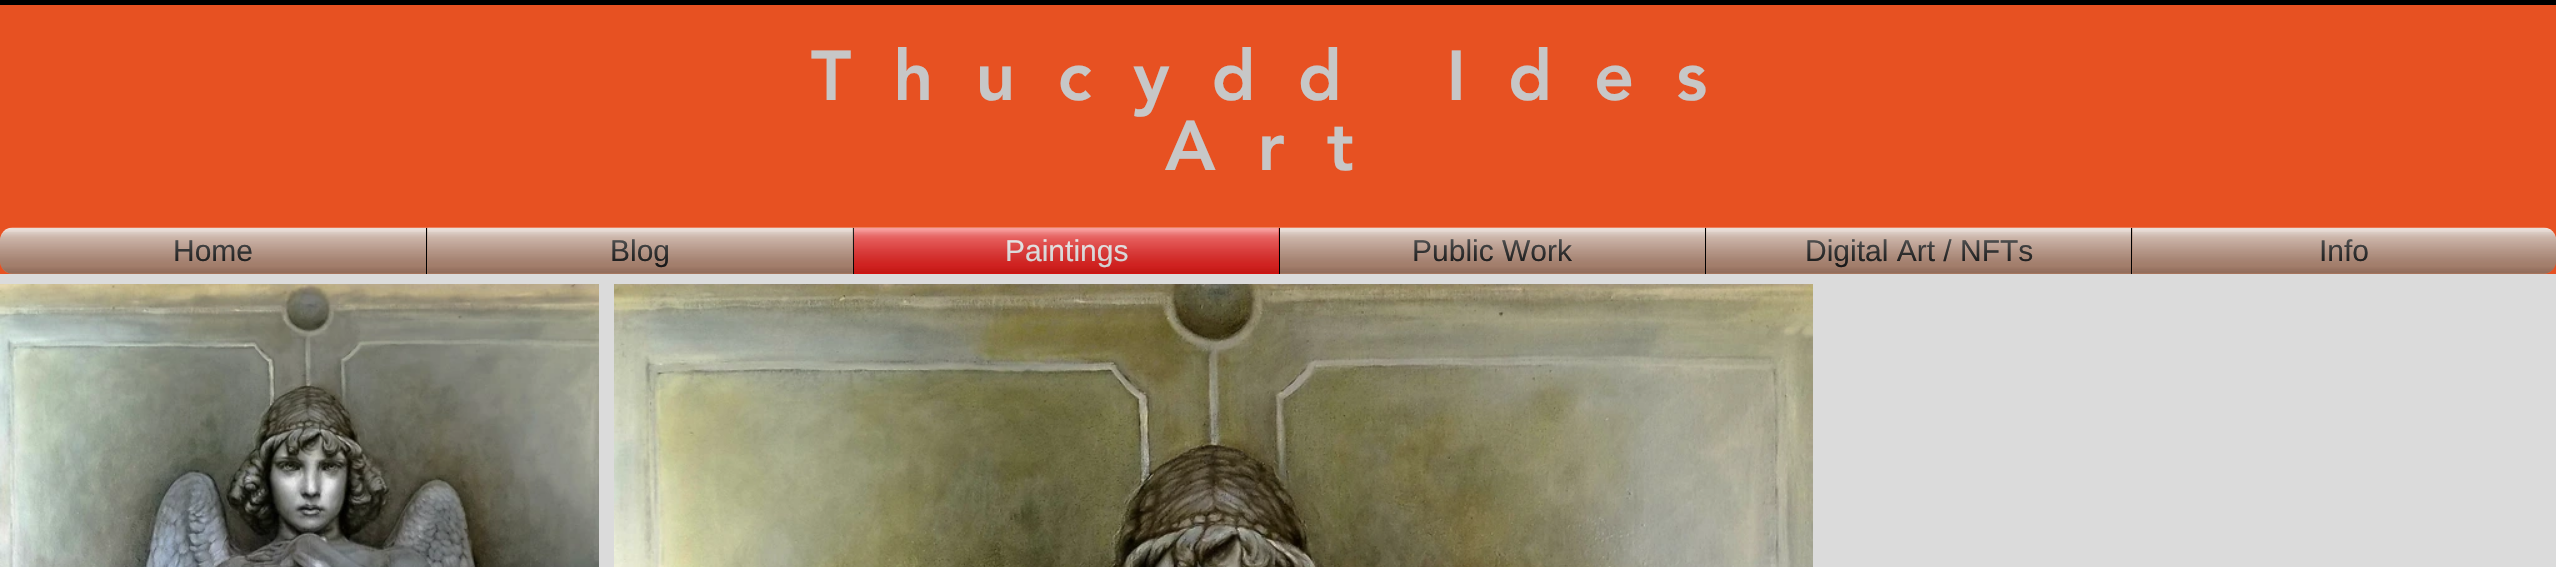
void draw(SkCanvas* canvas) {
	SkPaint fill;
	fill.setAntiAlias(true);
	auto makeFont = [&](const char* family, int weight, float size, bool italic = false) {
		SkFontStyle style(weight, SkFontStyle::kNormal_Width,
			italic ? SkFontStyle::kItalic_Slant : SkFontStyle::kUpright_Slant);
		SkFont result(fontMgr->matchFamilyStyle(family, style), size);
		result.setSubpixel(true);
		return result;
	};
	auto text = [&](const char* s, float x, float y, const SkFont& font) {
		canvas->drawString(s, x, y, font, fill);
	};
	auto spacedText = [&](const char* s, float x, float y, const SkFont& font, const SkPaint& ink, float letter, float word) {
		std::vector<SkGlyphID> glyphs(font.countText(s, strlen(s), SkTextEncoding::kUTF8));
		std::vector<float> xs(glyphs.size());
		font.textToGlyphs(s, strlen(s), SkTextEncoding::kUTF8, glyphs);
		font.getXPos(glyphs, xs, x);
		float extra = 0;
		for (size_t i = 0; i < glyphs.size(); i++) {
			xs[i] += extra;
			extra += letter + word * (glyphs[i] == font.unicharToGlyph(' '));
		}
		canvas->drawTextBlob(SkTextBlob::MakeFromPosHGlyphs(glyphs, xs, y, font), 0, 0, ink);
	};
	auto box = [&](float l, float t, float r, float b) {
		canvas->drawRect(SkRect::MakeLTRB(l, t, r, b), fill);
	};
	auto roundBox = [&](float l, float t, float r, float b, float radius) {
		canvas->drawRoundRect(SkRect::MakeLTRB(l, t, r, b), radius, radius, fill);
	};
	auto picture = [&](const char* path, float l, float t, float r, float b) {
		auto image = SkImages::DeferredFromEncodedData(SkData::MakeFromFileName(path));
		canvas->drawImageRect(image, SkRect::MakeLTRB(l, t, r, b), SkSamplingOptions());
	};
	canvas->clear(0xFFDBDBDB);
	fill.setColor(0xFF000000);
	box(0, 0, 2556, 5);
	fill.setColor(0xFFE75122);
	box(0, 5, 2556, 274);
	fill.setColor(0xFFC76C49);
	roundBox(0, 228, 2556, 274, 13);
	picture("image0.png", 0, 227, 2556, 274);
	picture("image1.png", 0, 232, 2556, 274);
	fill.setColor(0x69999282);
	canvas->drawPath(SkPathBuilder().moveTo(13, 228).lineTo(426, 228).lineTo(426, 274).lineTo(13, 274).cubicTo(6, 274, 0, 268, 0, 261).lineTo(0, 241).cubicTo(0, 234, 6, 228, 13, 228).close().detach(), fill);
	box(427, 228, 853, 274);
	fill.setColor(0xFF000000);
	box(426, 228, 427, 274);
	fill.setColor(0xE6E80000);
	box(854, 228, 1279, 274);
	fill.setColor(0xFF000000);
	box(853, 228, 854, 274);
	fill.setColor(0x69999282);
	box(1280, 228, 1705, 274);
	fill.setColor(0xFF000000);
	box(1279, 228, 1280, 274);
	fill.setColor(0x69999282);
	box(1706, 228, 2131, 274);
	fill.setColor(0xFF000000);
	box(1705, 228, 1706, 274);
	picture("image14.png", 0, 284, 599, 567);
	picture("image15.png", 614, 284, 1813, 567);
	auto font1 = makeFont("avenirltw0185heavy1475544", 900, 70);
	fill.setColor(0xFFC7C7C7);
	spacedText("Thucydd Ides", 811, 100, font1, fill, 42, 0);
	spacedText("Art", 1165, 170, font1, fill, 42, 0);
	auto font2 = makeFont("Liberation Sans", 400, 30);
	fill.setColor(0xFF000000);
	text("Home", 173, 261, font2);
	picture("image2.png", 0, 227, 426, 273);
	picture("image3.png", 0, 232, 426, 274);
	text("Blog", 610, 261, font2);
	picture("image4.png", 427, 227, 853, 274);
	picture("image5.png", 427, 232, 853, 274);
	fill.setColor(0xFFE8E8E8);
	text("Paintings", 1005, 261, font2);
	picture("image6.png", 853, 227, 1279, 274);
	picture("image7.png", 854, 232, 1279, 274);
	fill.setColor(0xFF000000);
	text("Public Work", 1412, 261, font2);
	picture("image8.png", 1280, 227, 1705, 274);
	picture("image9.png", 1280, 232, 1705, 274);
	text("Digital Art / NFTs", 1805, 261, font2);
	picture("image10.png", 1706, 227, 2132, 274);
	picture("image11.png", 1706, 232, 2131, 274);
	fill.setColor(0x69999282);
	canvas->drawPath(SkPathBuilder().moveTo(2131, 228).lineTo(2543, 228).cubicTo(2550, 228, 2556, 234, 2556, 241).lineTo(2556, 261).cubicTo(2556, 268, 2550, 274, 2543, 274).lineTo(2131, 274).close().detach(), fill);
	fill.setColor(0xFF000000);
	box(2131, 228, 2132, 274);
	text("Info", 2319, 261, font2);
	picture("image12.png", 2132, 227, 2556, 273);
	picture("image13.png", 2132, 232, 2556, 274);
}
